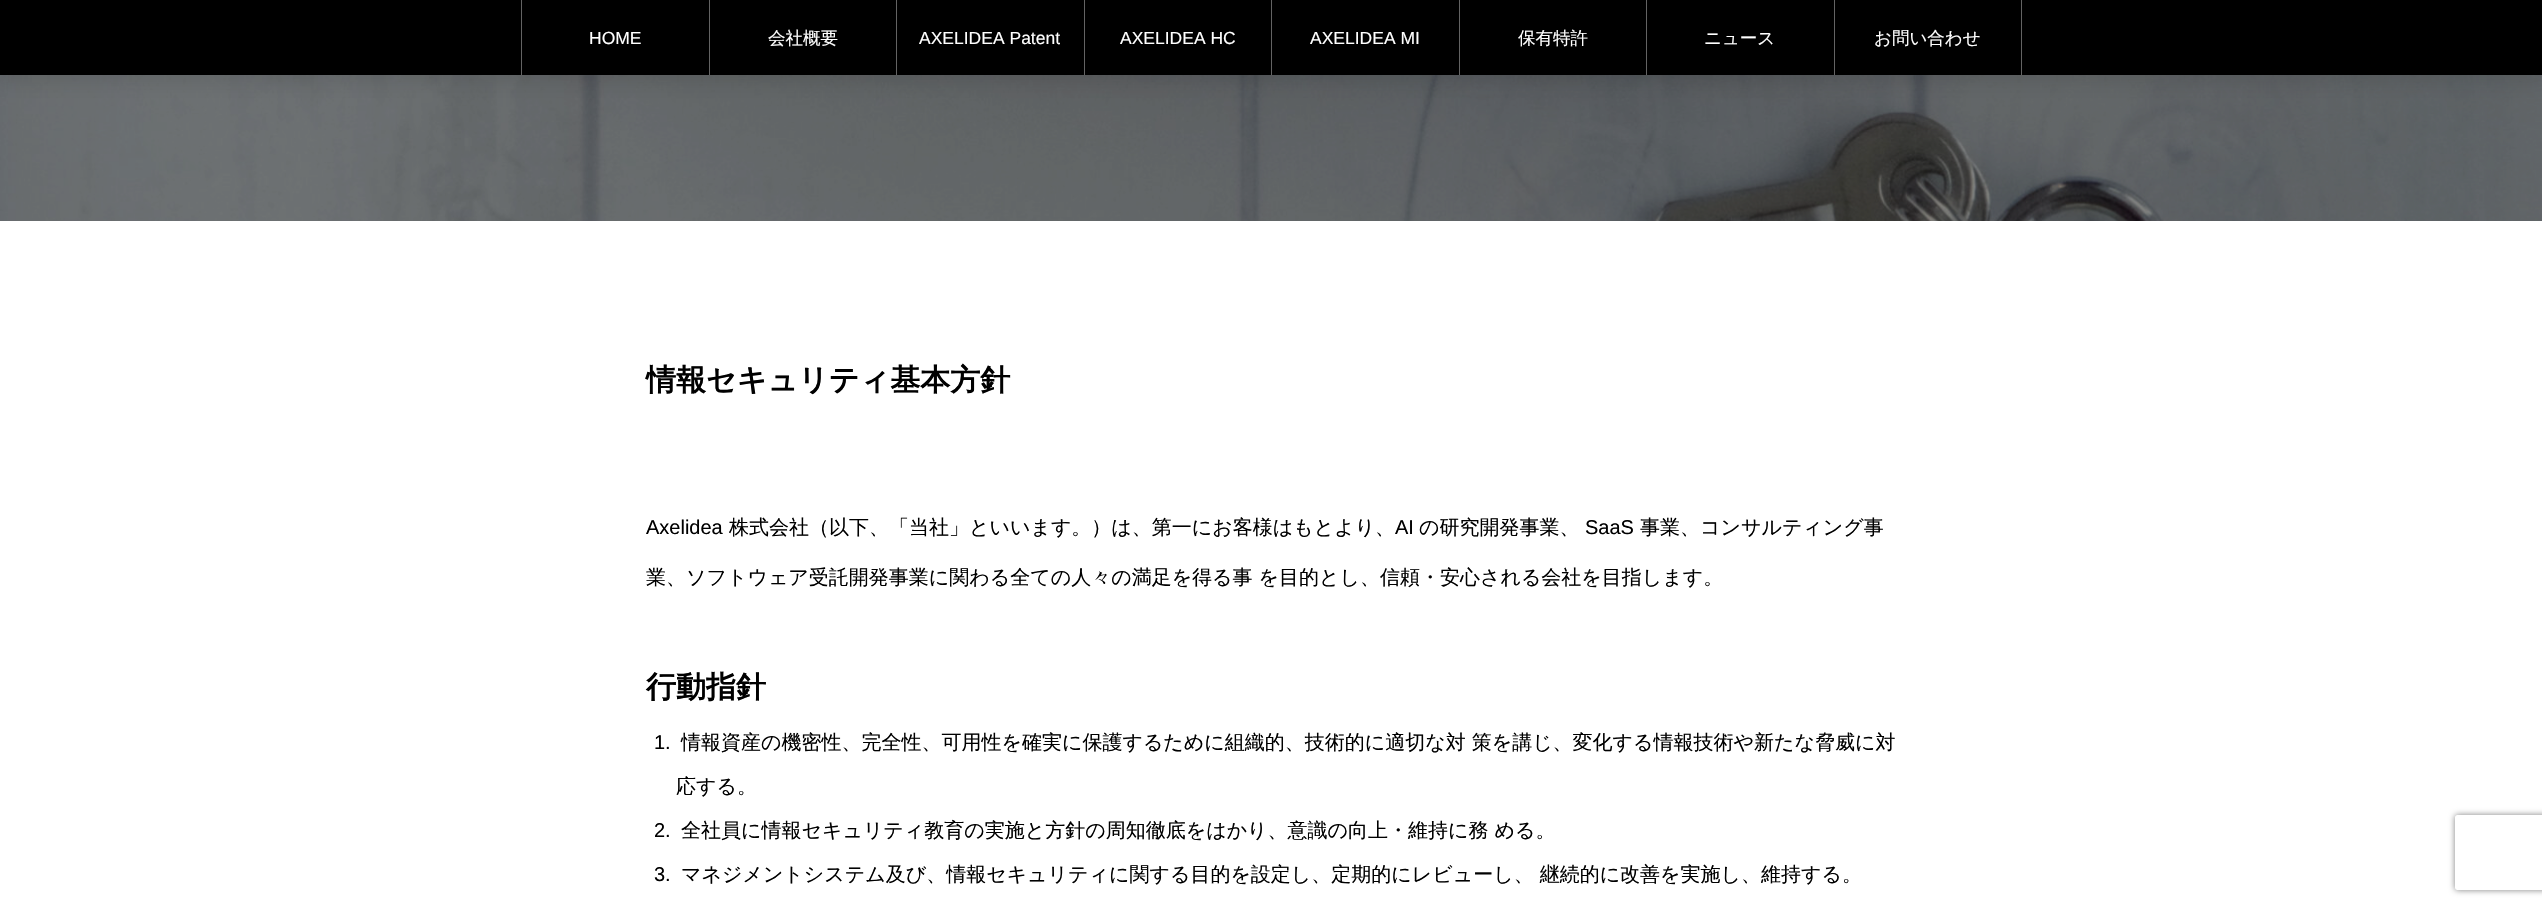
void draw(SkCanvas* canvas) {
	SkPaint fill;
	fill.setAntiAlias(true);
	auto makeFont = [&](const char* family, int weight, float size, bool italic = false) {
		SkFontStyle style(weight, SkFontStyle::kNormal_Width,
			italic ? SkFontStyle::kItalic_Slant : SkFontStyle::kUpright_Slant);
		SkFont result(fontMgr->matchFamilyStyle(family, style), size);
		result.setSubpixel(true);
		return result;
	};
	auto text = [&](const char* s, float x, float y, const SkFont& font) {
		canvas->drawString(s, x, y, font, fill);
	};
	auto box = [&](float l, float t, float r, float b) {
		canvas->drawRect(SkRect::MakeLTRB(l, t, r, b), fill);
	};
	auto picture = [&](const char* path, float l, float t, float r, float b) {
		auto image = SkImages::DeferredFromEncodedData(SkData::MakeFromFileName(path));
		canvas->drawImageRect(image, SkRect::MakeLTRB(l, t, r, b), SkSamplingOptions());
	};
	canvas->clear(0xFFFFFFFF);
	picture("image0.png", 0, 75, 2542, 221);
	fill.setColor(0x1A000000);
	fill.setMaskFilter(SkMaskFilter::MakeBlur(kNormal_SkBlurStyle, 9.5f));
	canvas->drawRect(SkRect::MakeLTRB(-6, -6, 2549, 81), fill);
	fill.setMaskFilter(nullptr);
	fill.setColor(0xFF000000);
	box(0, 0, 2542, 75);
	fill.setColor(0xFF636363);
	box(521, 0, 522, 75);
	box(709, 0, 710, 75);
	box(896, 0, 897, 75);
	box(1084, 0, 1085, 75);
	box(1271, 0, 1272, 75);
	box(1459, 0, 1460, 75);
	box(1646, 0, 1647, 75);
	box(1834, 0, 1835, 75);
	box(2021, 0, 2022, 75);
	canvas->save();
	canvas->clipPath(SkPathBuilder(SkPathFillType::kEvenOdd).moveTo(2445, 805).lineTo(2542, 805).lineTo(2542, 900).lineTo(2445, 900).close().moveTo(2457.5f, 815).lineTo(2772.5f, 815).cubicTo(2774, 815, 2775, 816, 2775, 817.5f).lineTo(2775, 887.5f).cubicTo(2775, 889, 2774, 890, 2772.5f, 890).lineTo(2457.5f, 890).cubicTo(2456, 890, 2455, 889, 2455, 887.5f).lineTo(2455, 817.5f).cubicTo(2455, 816, 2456, 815, 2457.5f, 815).close().detach(), true);
	fill.setColor(0xFF808080);
	fill.setMaskFilter(SkMaskFilter::MakeBlur(kNormal_SkBlurStyle, 3));
	canvas->drawRoundRect(SkRect::MakeLTRB(2455, 815, 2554, 890), 2.5f, 2.5f, fill);
	fill.setMaskFilter(nullptr);
	canvas->restore();
	auto font1 = makeFont("Liberation Sans", 400, 17.5f);
	fill.setColor(0xFFFFFFFF);
	text("HOME", 589, 44, font1);
	auto font2 = makeFont("WenQuanYi Zen Hei", 500, 17.5f);
	text("会社概要", 768, 44, font2);
	text("AXELIDEA Patent", 919, 44, font1);
	text("AXELIDEA HC", 1120, 44, font1);
	text("AXELIDEA MI", 1310, 44, font1);
	text("保有特許", 1518, 44, font2);
	text("ニュース", 1704, 44, font2);
	text("お問い合わせ", 1874, 44, font2);
	auto font3 = makeFont("WenQuanYi Zen Hei", 700, 30);
	fill.setColor(0xFF000000);
	text("情報セキュリティ基本方針", 646, 390, font3);
	auto font4 = makeFont("Liberation Sans", 400, 20);
	text("Axelidea", 646, 534, font4);
	auto font5 = makeFont("WenQuanYi Zen Hei", 500, 20);
	text("株式会社（以下、「当社」といいます。）は、第一にお客様はもとより、", 729, 534, font5);
	text("AI", 1395, 534, font4);
	text("の研究開発事業、", 1419, 534, font5);
	text("SaaS", 1585, 534, font4);
	text("事業、コンサルティング事", 1640, 534, font5);
	text("業、ソフトウェア受託開発事業に関わる全ての人々の満足を得る事 を目的とし、信頼・安心される会社を目指します。", 646, 584, font5);
	text("行動指針", 646, 697, font3);
	text("1.", 654, 749, font4);
	text("情報資産の機密性、完全性、可用性を確実に保護するために組織的、技術的に適切な対 策を講じ、変化する情報技術や新たな脅威に対", 681, 749, font5);
	text("応する。", 676, 793, font5);
	text("2.", 654, 837, font4);
	text("全社員に情報セキュリティ教育の実施と方針の周知徹底をはかり、意識の向上・維持に務 める。", 681, 837, font5);
	text("3.", 654, 881, font4);
	text("マネジメントシステム及び、情報セキュリティに関する目的を設定し、定期的にレビューし、 継続的に改善を実施し、維持する。", 681, 881, font5);
}
